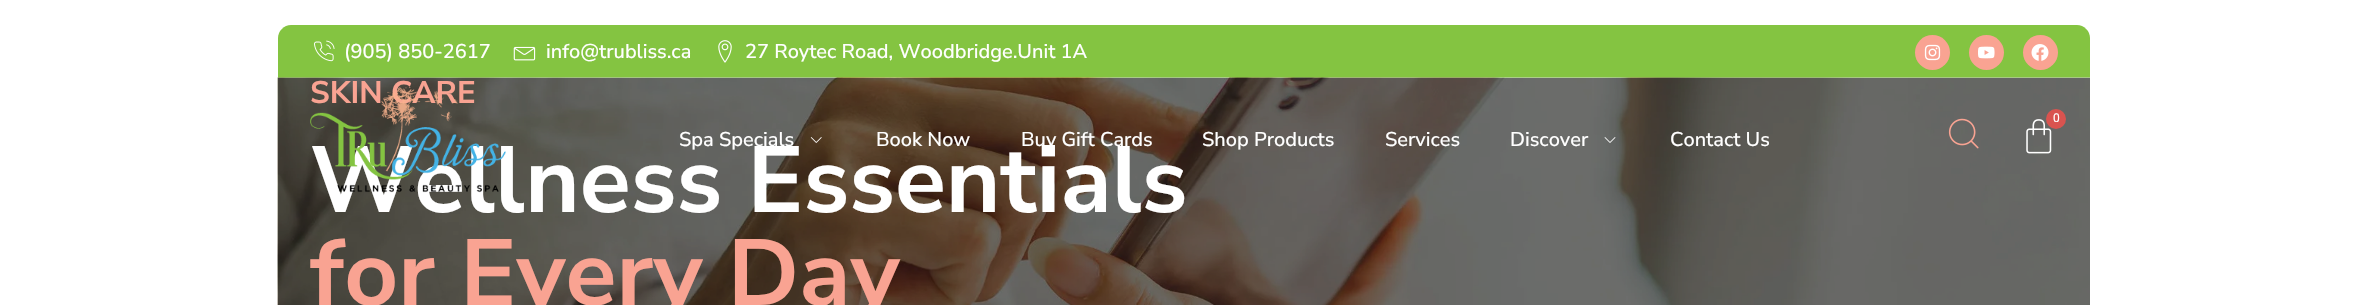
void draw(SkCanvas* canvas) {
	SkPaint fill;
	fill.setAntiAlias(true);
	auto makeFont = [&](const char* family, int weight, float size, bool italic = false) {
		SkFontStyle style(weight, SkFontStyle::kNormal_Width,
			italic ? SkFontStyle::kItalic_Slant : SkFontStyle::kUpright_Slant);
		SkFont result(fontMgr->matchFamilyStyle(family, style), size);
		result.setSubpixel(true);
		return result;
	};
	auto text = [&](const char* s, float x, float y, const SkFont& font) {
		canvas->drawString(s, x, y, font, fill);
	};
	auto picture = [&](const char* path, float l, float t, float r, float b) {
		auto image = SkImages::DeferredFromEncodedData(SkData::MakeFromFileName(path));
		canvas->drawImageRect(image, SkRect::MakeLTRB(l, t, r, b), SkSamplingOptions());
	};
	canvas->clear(0xFFFFFFFF);
	fill.setColor(0xFF84C441);
	canvas->drawPath(SkPathBuilder().moveTo(291, 25).lineTo(2077, 25).cubicTo(2084, 25, 2090, 31, 2090, 38).lineTo(2090, 80).lineTo(278, 80).lineTo(278, 38).cubicTo(278, 31, 284, 25, 291, 25).close().detach(), fill);
	picture("image0.png", 314, 40, 335, 62);
	picture("image1.png", 513, 46, 536, 61);
	picture("image2.png", 718, 40, 732, 63);
	fill.setColor(0xFFF9A392);
	canvas->drawCircle(1932.5f, 52.5f, 17.5f, fill);
	picture("image3.png", 1924, 44, 1941, 61);
	canvas->drawCircle(1986.5f, 52.5f, 17.5f, fill);
	picture("image4.png", 1978, 46, 1995, 59);
	canvas->drawCircle(2040.5f, 52.5f, 17.5f, fill);
	picture("image5.png", 2031, 44, 2049, 61);
	picture("image11.png", 277, 77, 2090, 305);
	picture("image7.png", 1948, 118, 1979, 149);
	picture("image8.png", 2026, 119, 2052, 154);
	fill.setColor(0xFFD9534F);
	canvas->drawCircle(2056, 119, 10, fill);
	picture("image9.png", 810, 137, 822, 143);
	picture("image10.png", 1604, 137, 1616, 143);
	auto font1 = makeFont("Nunito Sans", 500, 20);
	fill.setColor(0xFFFFFFFF);
	text("(905) 850-2617", 344, 58, font1);
	text("info@trubliss.ca", 546, 58, font1);
	text("27 Roytec Road, Woodbridge.Unit 1A", 745, 58, font1);
	auto font2 = makeFont("Roboto", 400, 12);
	text("0", 2053, 122, font2);
	text("Spa Specials", 679, 146, font1);
	text("Book Now", 876, 146, font1);
	text("Buy Gift Cards", 1021, 146, font1);
	text("Shop Products", 1202, 146, font1);
	text("Services", 1385, 146, font1);
	text("Discover", 1510, 146, font1);
	text("Contact Us", 1670, 146, font1);
	auto font3 = makeFont("Nunito Sans", 700, 31.25f);
	fill.setColor(0xFFF9A392);
	text("SKIN CARE", 310, 103, font3);
	auto font4 = makeFont("Nunito Sans", 700, 93.75f);
	fill.setColor(0xFFFFFFFF);
	text("Wellness Essentials", 310, 212, font4);
	picture("image6.png", 310, 87, 506, 193);
	fill.setColor(0xFFF9A392);
	text("for Every Day", 310, 305, font4);
}
